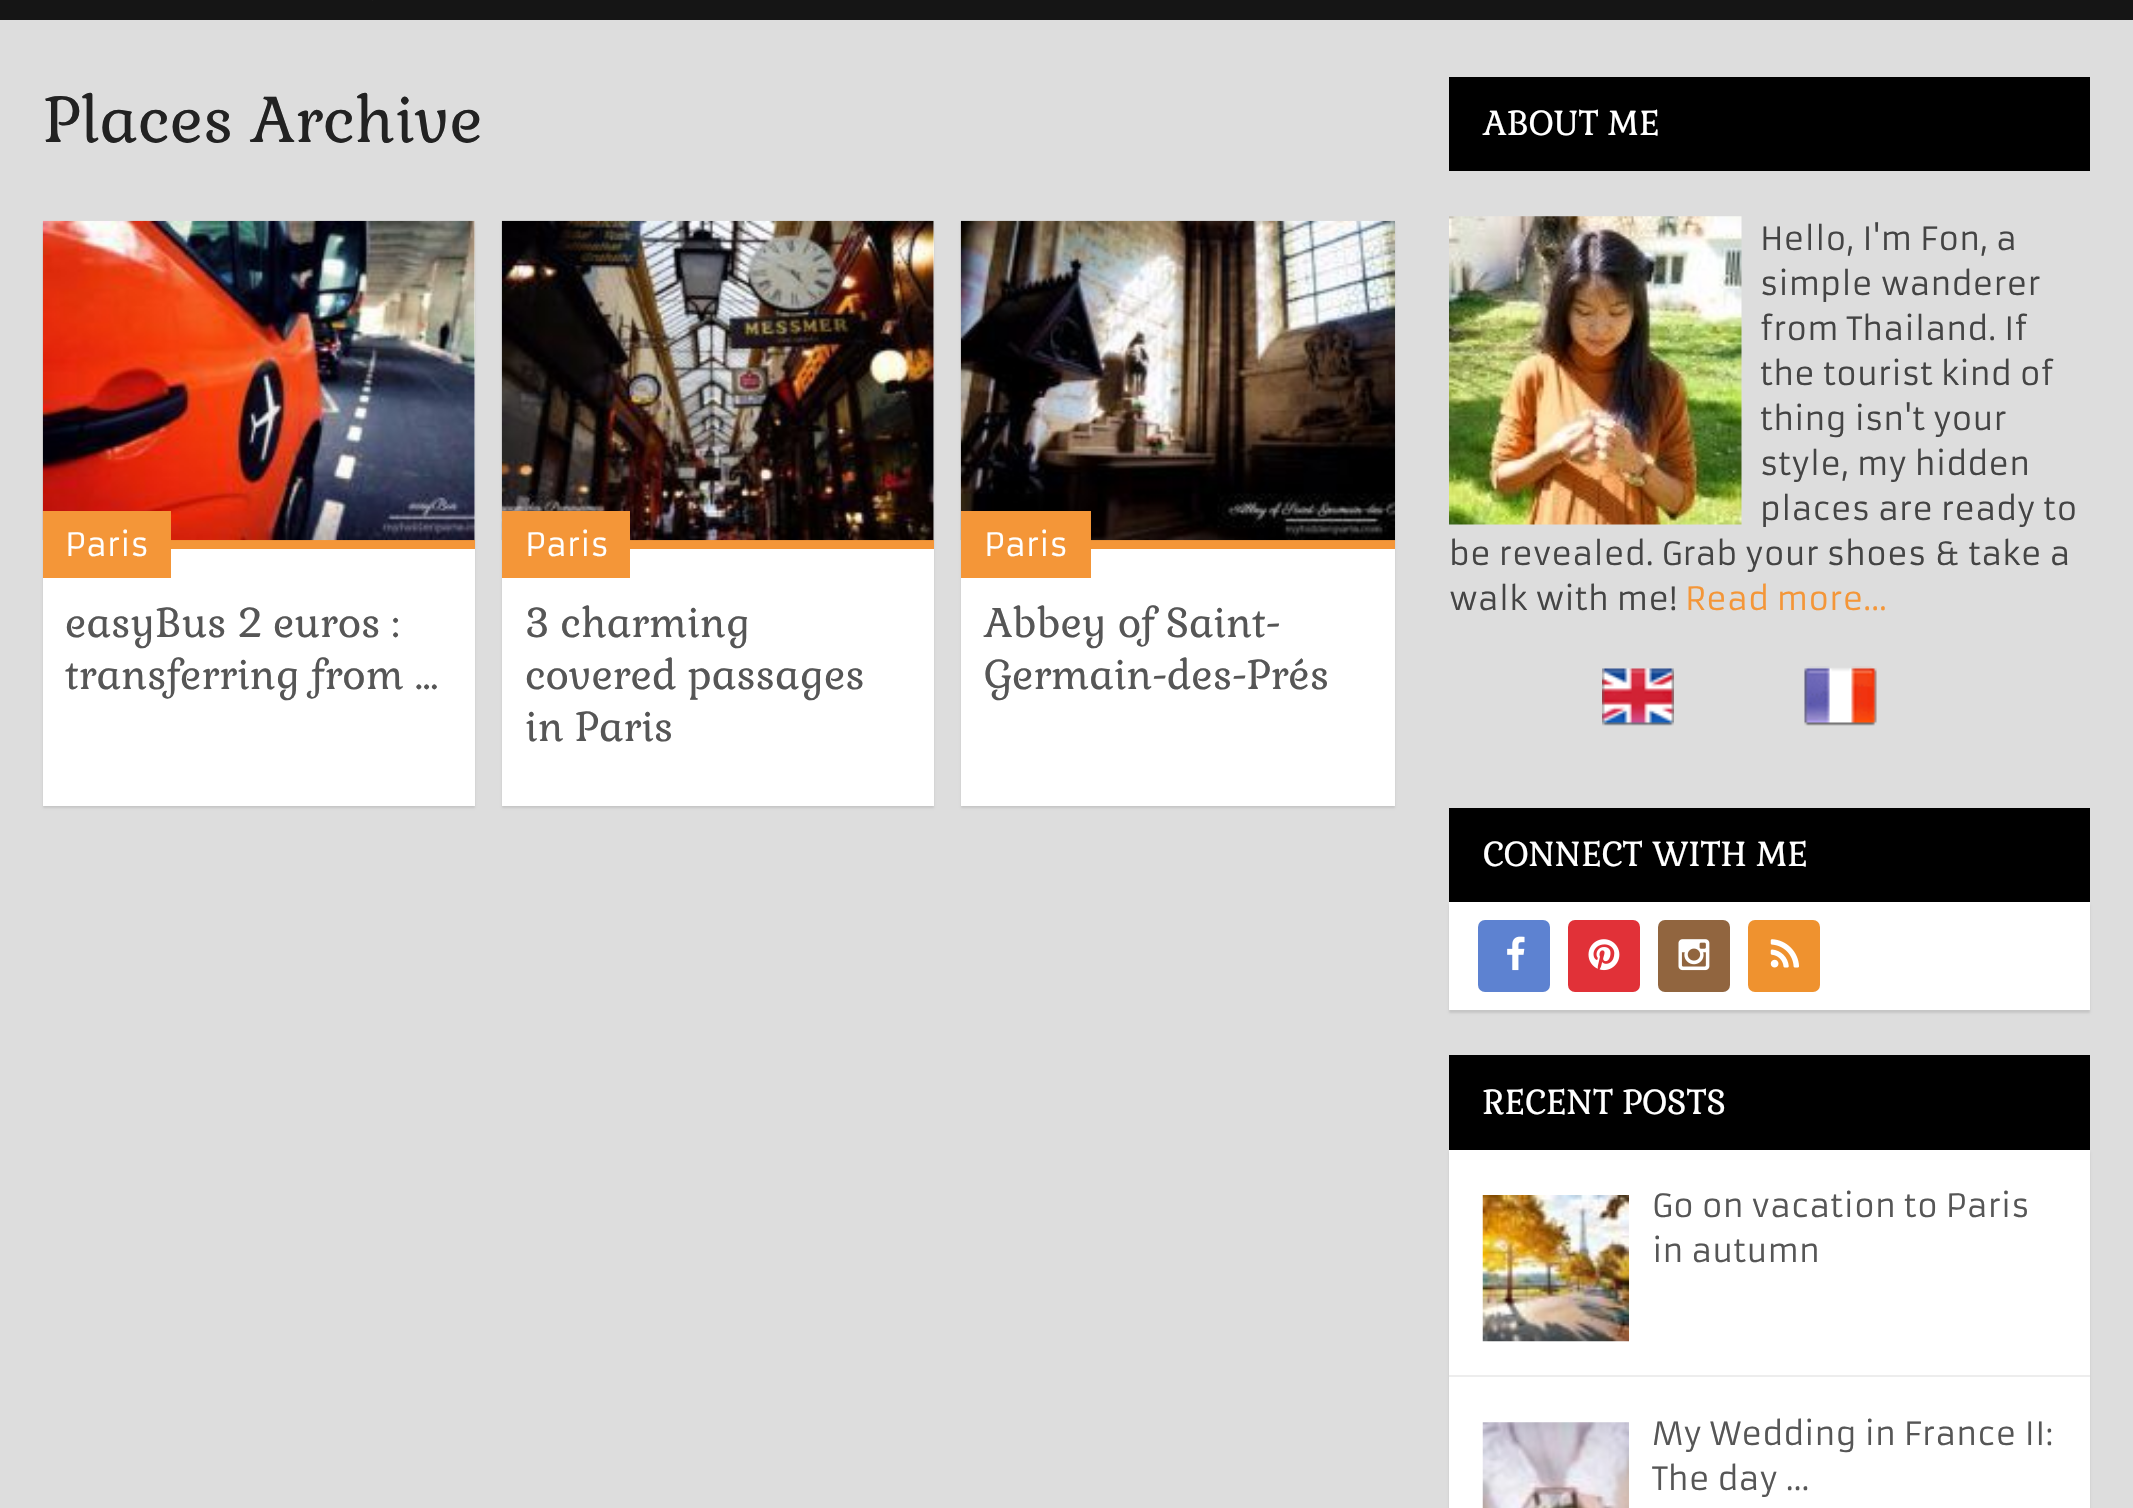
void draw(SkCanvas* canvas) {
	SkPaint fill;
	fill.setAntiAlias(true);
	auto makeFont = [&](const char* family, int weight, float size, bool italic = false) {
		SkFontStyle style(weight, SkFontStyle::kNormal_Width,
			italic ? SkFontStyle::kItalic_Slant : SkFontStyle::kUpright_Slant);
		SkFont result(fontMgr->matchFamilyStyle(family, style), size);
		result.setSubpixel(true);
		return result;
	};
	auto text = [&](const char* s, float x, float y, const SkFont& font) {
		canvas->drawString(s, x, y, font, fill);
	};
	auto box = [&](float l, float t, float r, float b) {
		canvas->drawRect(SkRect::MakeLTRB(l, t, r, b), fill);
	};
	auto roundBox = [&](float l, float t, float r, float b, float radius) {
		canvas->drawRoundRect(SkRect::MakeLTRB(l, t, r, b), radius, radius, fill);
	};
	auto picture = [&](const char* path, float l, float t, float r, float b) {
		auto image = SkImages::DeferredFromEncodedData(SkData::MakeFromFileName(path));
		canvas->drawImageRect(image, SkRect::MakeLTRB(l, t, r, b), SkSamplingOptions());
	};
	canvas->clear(0xFFDDDDDD);
	fill.setColor(0xFF151515);
	box(0, 0, 2133, 20);
	fill.setColor(0xFF1A1A1A);
	box(372, 0, 373, 1);
	fill.setColor(0x1A000000);
	fill.setMaskFilter(SkMaskFilter::MakeBlur(kNormal_SkBlurStyle, 1));
	canvas->drawRect(SkRect::MakeLTRB(43, 223, 475, 808), fill);
	fill.setMaskFilter(nullptr);
	fill.setColor(0xFFFFFFFF);
	box(43, 221, 475, 806);
	fill.setColor(0xFFF49638);
	box(171, 540, 475, 549);
	picture("image0.png", 42, 220, 475, 541);
	box(43, 511, 171, 578);
	fill.setColor(0x1A000000);
	fill.setMaskFilter(SkMaskFilter::MakeBlur(kNormal_SkBlurStyle, 1));
	canvas->drawRect(SkRect::MakeLTRB(502, 223, 934, 808), fill);
	fill.setMaskFilter(nullptr);
	fill.setColor(0xFFFFFFFF);
	box(502, 221, 934, 806);
	fill.setColor(0xFFF49638);
	box(630, 540, 934, 549);
	picture("image1.png", 501, 220, 934, 541);
	box(502, 511, 630, 578);
	fill.setColor(0x1A000000);
	fill.setMaskFilter(SkMaskFilter::MakeBlur(kNormal_SkBlurStyle, 1));
	canvas->drawRect(SkRect::MakeLTRB(961, 223, 1395, 808), fill);
	fill.setMaskFilter(nullptr);
	fill.setColor(0xFFFFFFFF);
	box(961, 549, 1395, 806);
	fill.setColor(0xFFF49638);
	box(1091, 540, 1395, 549);
	picture("image2.png", 960, 220, 1395, 541);
	box(961, 511, 1091, 578);
	fill.setColor(0xFF000000);
	box(1449, 77, 2090, 171);
	picture("image3.png", 1449, 216, 1742, 525);
	picture("image4.png", 1602, 668, 1674, 726);
	picture("image5.png", 1804, 666, 1877, 726);
	box(1449, 808, 2090, 902);
	fill.setColor(0x1A000000);
	fill.setMaskFilter(SkMaskFilter::MakeBlur(kNormal_SkBlurStyle, 1));
	canvas->drawRect(SkRect::MakeLTRB(1449, 905, 2090, 1013), fill);
	fill.setMaskFilter(nullptr);
	fill.setColor(0xFFFFFFFF);
	box(1449, 902, 2090, 1010);
	fill.setColor(0xFF5D82D1);
	roundBox(1478, 920, 1550, 992, 7);
	picture("image6.png", 1507, 936, 1525, 971);
	fill.setColor(0xFFE13138);
	roundBox(1568, 920, 1640, 992, 7);
	picture("image7.png", 1588, 939, 1620, 971);
	fill.setColor(0xFF91653F);
	roundBox(1658, 920, 1730, 992, 7);
	picture("image8.png", 1678, 939, 1710, 971);
	fill.setColor(0xFFEF922F);
	roundBox(1748, 920, 1820, 992, 7);
	picture("image9.png", 1770, 939, 1799, 968);
	fill.setColor(0xFF000000);
	box(1449, 1055, 2090, 1150);
	fill.setColor(0x1A000000);
	fill.setMaskFilter(SkMaskFilter::MakeBlur(kNormal_SkBlurStyle, 1));
	canvas->drawRect(SkRect::MakeLTRB(1449, 1152, 2090, 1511), fill);
	fill.setMaskFilter(nullptr);
	fill.setColor(0xFFFFFFFF);
	box(1449, 1150, 2090, 1508);
	fill.setColor(0xFFEDEDED);
	box(1449, 1375, 2090, 1377);
	picture("image10.png", 1482, 1195, 1629, 1342);
	picture("image11.png", 1482, 1422, 1629, 1508);
	auto font1 = makeFont("Gabriela", 400, 63);
	fill.setColor(0xFF222222);
	text("Places Archive", 43, 142, font1);
	auto font2 = makeFont("Armata", 400, 31.5f);
	fill.setColor(0xFFFFFFFF);
	text("Paris", 65, 556, font2);
	auto font3 = makeFont("Gabriela", 400, 40.5f);
	fill.setColor(0xFF565656);
	text("easyBus 2 euros :", 65, 637, font3);
	text("transferring from ...", 65, 689, font3);
	fill.setColor(0xFFFFFFFF);
	text("Paris", 525, 556, font2);
	fill.setColor(0xFF565656);
	text("3 charming", 525, 637, font3);
	text("covered passages", 525, 689, font3);
	text("in Paris", 525, 741, font3);
	fill.setColor(0xFFFFFFFF);
	text("Paris", 984, 556, font2);
	fill.setColor(0xFF565656);
	text("Abbey of Saint-", 984, 637, font3);
	text("Germain-des-Prés", 984, 689, font3);
	auto font4 = makeFont("Gabriela", 400, 33.75f);
	fill.setColor(0xFFFFFFFF);
	text("ABOUT ME", 1483, 135, font4);
	fill.setColor(0xFF444444);
	text("Hello, I'm Fon, a", 1760, 250, font2);
	text("simple wanderer", 1760, 295, font2);
	text("from Thailand. If", 1760, 340, font2);
	text("the tourist kind of", 1760, 385, font2);
	text("thing isn't your", 1760, 430, font2);
	text("style, my hidden", 1760, 475, font2);
	text("places are ready to", 1760, 520, font2);
	text("be revealed. Grab your shoes & take a", 1449, 565, font2);
	text("walk with me!", 1449, 610, font2);
	fill.setColor(0xFFF49638);
	text("Read more...", 1685, 610, font2);
	fill.setColor(0xFFFFFFFF);
	text("CONNECT WITH ME", 1483, 866, font4);
	text("RECENT POSTS", 1483, 1114, font4);
	fill.setColor(0xFF565656);
	text("Go on vacation to Paris", 1652, 1217, font2);
	text("in autumn", 1652, 1262, font2);
	text("My Wedding in France II:", 1652, 1445, font2);
	text("The day …", 1652, 1490, font2);
}
